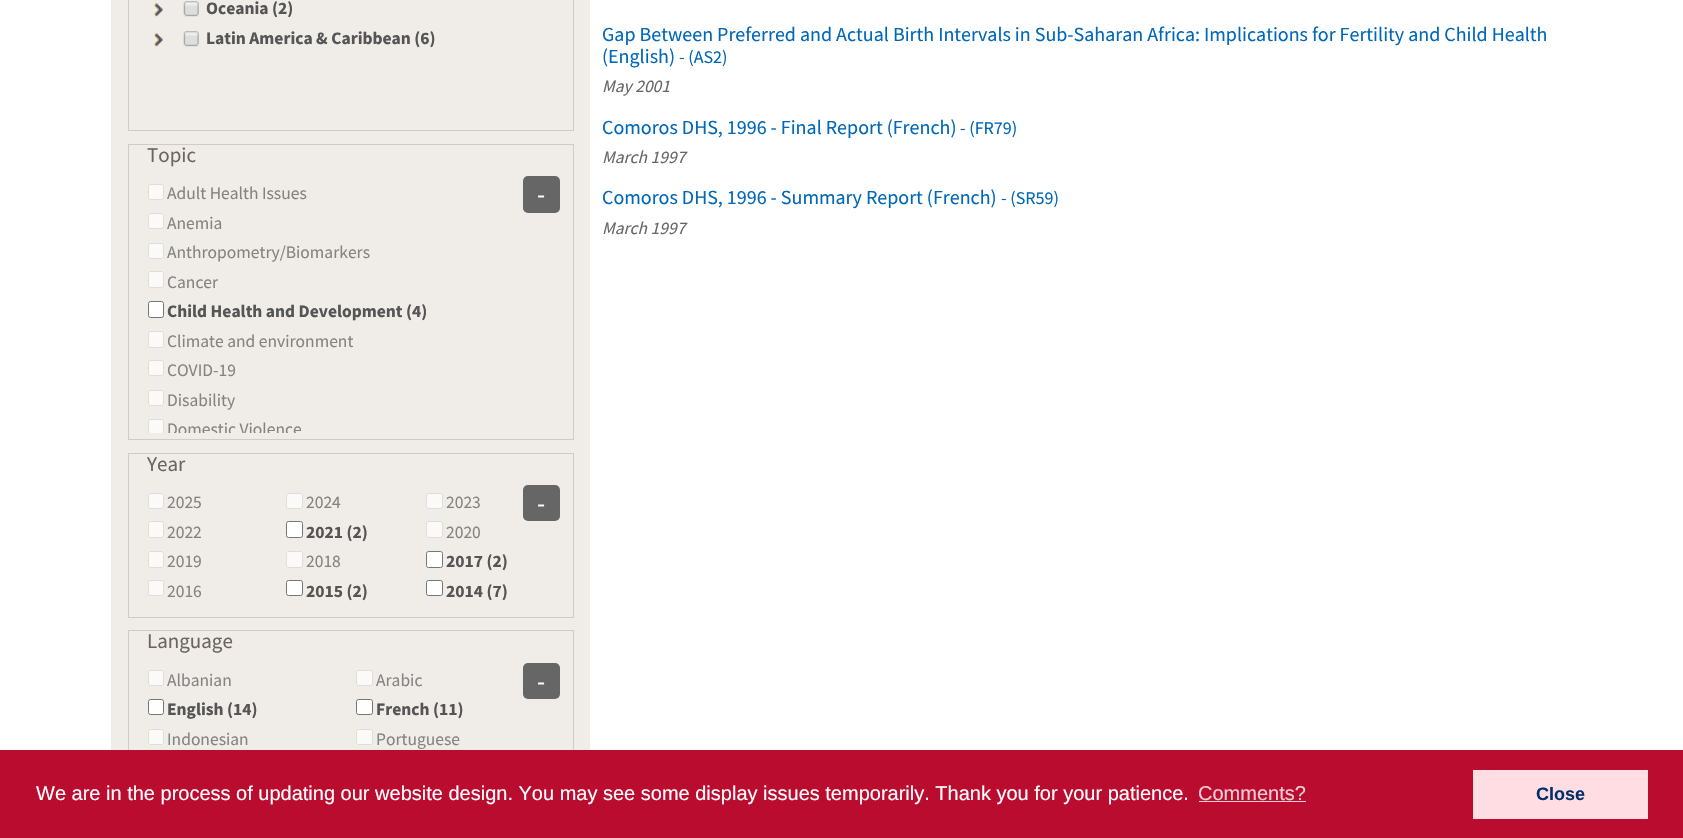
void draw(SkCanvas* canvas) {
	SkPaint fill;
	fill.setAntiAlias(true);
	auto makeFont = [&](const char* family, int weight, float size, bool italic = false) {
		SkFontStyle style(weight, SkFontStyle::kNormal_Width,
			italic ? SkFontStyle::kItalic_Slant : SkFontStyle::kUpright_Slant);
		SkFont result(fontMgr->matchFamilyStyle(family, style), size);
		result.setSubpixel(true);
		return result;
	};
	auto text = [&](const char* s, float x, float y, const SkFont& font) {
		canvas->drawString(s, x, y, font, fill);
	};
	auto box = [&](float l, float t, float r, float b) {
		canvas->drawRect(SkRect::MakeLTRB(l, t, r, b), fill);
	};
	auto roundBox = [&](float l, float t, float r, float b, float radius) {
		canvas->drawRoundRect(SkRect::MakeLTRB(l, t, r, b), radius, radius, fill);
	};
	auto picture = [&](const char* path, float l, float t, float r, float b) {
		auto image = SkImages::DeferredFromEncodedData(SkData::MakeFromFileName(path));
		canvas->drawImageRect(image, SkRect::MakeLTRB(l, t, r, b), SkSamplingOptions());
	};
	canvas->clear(0xFFFFFFFF);
	fill.setColor(0xFFF0EDE9);
	box(111, 0, 590, 750);
	fill.setStyle(SkPaint::kStroke_Style);
	fill.setStrokeWidth(1);
	fill.setColor(0xFFCCCCCC);
	canvas->drawRect(SkRect::MakeLTRB(128.5f, -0.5f, 573.5f, 130.5f), fill);
	picture("image0.png", 153, 3, 163, 17);
	picture("image1.png", 183, 1, 199, 17);
	picture("image0.png", 153, 33, 163, 47);
	picture("image1.png", 183, 31, 199, 47);
	canvas->drawRect(SkRect::MakeLTRB(128.5f, 144.5f, 573.5f, 439.5f), fill);
	fill.setStyle(SkPaint::kFill_Style);
	fill.setColor(0xFFFBFAF8);
	roundBox(148, 184, 164, 200, 2.5f);
	fill.setStyle(SkPaint::kStroke_Style);
	fill.setColor(0x4D9B9A99);
	canvas->drawRoundRect(SkRect::MakeLTRB(148.5f, 184.5f, 163.5f, 199.5f), 2, 2, fill);
	fill.setStyle(SkPaint::kFill_Style);
	fill.setColor(0xFFFBFAF8);
	roundBox(148, 213, 164, 229, 2.5f);
	fill.setStyle(SkPaint::kStroke_Style);
	fill.setColor(0x4D9B9A99);
	canvas->drawRoundRect(SkRect::MakeLTRB(148.5f, 213.5f, 163.5f, 228.5f), 2, 2, fill);
	fill.setStyle(SkPaint::kFill_Style);
	fill.setColor(0xFFFBFAF8);
	roundBox(148, 243, 164, 259, 2.5f);
	fill.setStyle(SkPaint::kStroke_Style);
	fill.setColor(0x4D9B9A99);
	canvas->drawRoundRect(SkRect::MakeLTRB(148.5f, 243.5f, 163.5f, 258.5f), 2, 2, fill);
	fill.setStyle(SkPaint::kFill_Style);
	fill.setColor(0xFFFBFAF8);
	roundBox(148, 271, 164, 288, 2.5f);
	fill.setStyle(SkPaint::kStroke_Style);
	fill.setColor(0x4D9B9A99);
	canvas->drawRoundRect(SkRect::MakeLTRB(148.5f, 271.5f, 163.5f, 287.5f), 2, 2, fill);
	fill.setStyle(SkPaint::kFill_Style);
	fill.setColor(0xFFFFFFFF);
	canvas->drawRoundRect(SkRect::MakeLTRB(148.5f, 301.5f, 163.5f, 317.5f), 2, 2, fill);
	fill.setStyle(SkPaint::kStroke_Style);
	fill.setColor(0xFF767676);
	canvas->drawRoundRect(SkRect::MakeLTRB(148.5f, 301.5f, 163.5f, 317.5f), 2, 2, fill);
	fill.setStyle(SkPaint::kFill_Style);
	fill.setColor(0xFFFBFAF8);
	roundBox(148, 331, 164, 348, 2.5f);
	fill.setStyle(SkPaint::kStroke_Style);
	fill.setColor(0x4D9B9A99);
	canvas->drawRoundRect(SkRect::MakeLTRB(148.5f, 331.5f, 163.5f, 347.5f), 2, 2, fill);
	fill.setStyle(SkPaint::kFill_Style);
	fill.setColor(0xFFFBFAF8);
	roundBox(148, 360, 164, 376, 2.5f);
	fill.setStyle(SkPaint::kStroke_Style);
	fill.setColor(0x4D9B9A99);
	canvas->drawRoundRect(SkRect::MakeLTRB(148.5f, 360.5f, 163.5f, 375.5f), 2, 2, fill);
	fill.setStyle(SkPaint::kFill_Style);
	fill.setColor(0xFFFBFAF8);
	roundBox(148, 390, 164, 406, 2.5f);
	fill.setStyle(SkPaint::kStroke_Style);
	fill.setColor(0x4D9B9A99);
	canvas->drawRoundRect(SkRect::MakeLTRB(148.5f, 390.5f, 163.5f, 405.5f), 2, 2, fill);
	canvas->save();
	canvas->clipRect(SkRect::MakeLTRB(135, 183, 566, 433));
	fill.setStyle(SkPaint::kFill_Style);
	fill.setColor(0xFFFBFAF8);
	roundBox(148, 419, 164, 435, 2.5f);
	fill.setStyle(SkPaint::kStroke_Style);
	fill.setColor(0x4D9B9A99);
	canvas->drawRoundRect(SkRect::MakeLTRB(148.5f, 419.5f, 163.5f, 434.5f), 2, 2, fill);
	canvas->restore();
	fill.setStyle(SkPaint::kFill_Style);
	fill.setColor(0xFF666666);
	roundBox(523, 176, 560, 213, 5);
	fill.setStyle(SkPaint::kStroke_Style);
	fill.setColor(0xFFCCCCCC);
	canvas->drawRect(SkRect::MakeLTRB(128.5f, 453.5f, 573.5f, 617.5f), fill);
	fill.setStyle(SkPaint::kFill_Style);
	fill.setColor(0xFFFBFAF8);
	roundBox(148, 493, 164, 509, 2.5f);
	fill.setStyle(SkPaint::kStroke_Style);
	fill.setColor(0x4D9B9A99);
	canvas->drawRoundRect(SkRect::MakeLTRB(148.5f, 493.5f, 163.5f, 508.5f), 2, 2, fill);
	fill.setStyle(SkPaint::kFill_Style);
	fill.setColor(0xFFFBFAF8);
	roundBox(286, 493, 303, 509, 2.5f);
	fill.setStyle(SkPaint::kStroke_Style);
	fill.setColor(0x4D9B9A99);
	canvas->drawRoundRect(SkRect::MakeLTRB(286.5f, 493.5f, 302.5f, 508.5f), 2, 2, fill);
	fill.setStyle(SkPaint::kFill_Style);
	fill.setColor(0xFFFBFAF8);
	roundBox(426, 493, 443, 509, 2.5f);
	fill.setStyle(SkPaint::kStroke_Style);
	fill.setColor(0x4D9B9A99);
	canvas->drawRoundRect(SkRect::MakeLTRB(426.5f, 493.5f, 442.5f, 508.5f), 2, 2, fill);
	fill.setStyle(SkPaint::kFill_Style);
	fill.setColor(0xFFFBFAF8);
	roundBox(148, 521, 164, 538, 2.5f);
	fill.setStyle(SkPaint::kStroke_Style);
	fill.setColor(0x4D9B9A99);
	canvas->drawRoundRect(SkRect::MakeLTRB(148.5f, 521.5f, 163.5f, 537.5f), 2, 2, fill);
	fill.setStyle(SkPaint::kFill_Style);
	fill.setColor(0xFFFFFFFF);
	canvas->drawRoundRect(SkRect::MakeLTRB(286.5f, 521.5f, 302.5f, 537.5f), 2, 2, fill);
	fill.setStyle(SkPaint::kStroke_Style);
	fill.setColor(0xFF767676);
	canvas->drawRoundRect(SkRect::MakeLTRB(286.5f, 521.5f, 302.5f, 537.5f), 2, 2, fill);
	fill.setStyle(SkPaint::kFill_Style);
	fill.setColor(0xFFFBFAF8);
	roundBox(426, 521, 443, 538, 2.5f);
	fill.setStyle(SkPaint::kStroke_Style);
	fill.setColor(0x4D9B9A99);
	canvas->drawRoundRect(SkRect::MakeLTRB(426.5f, 521.5f, 442.5f, 537.5f), 2, 2, fill);
	fill.setStyle(SkPaint::kFill_Style);
	fill.setColor(0xFFFBFAF8);
	roundBox(148, 551, 164, 568, 2.5f);
	fill.setStyle(SkPaint::kStroke_Style);
	fill.setColor(0x4D9B9A99);
	canvas->drawRoundRect(SkRect::MakeLTRB(148.5f, 551.5f, 163.5f, 567.5f), 2, 2, fill);
	fill.setStyle(SkPaint::kFill_Style);
	fill.setColor(0xFFFBFAF8);
	roundBox(286, 551, 303, 568, 2.5f);
	fill.setStyle(SkPaint::kStroke_Style);
	fill.setColor(0x4D9B9A99);
	canvas->drawRoundRect(SkRect::MakeLTRB(286.5f, 551.5f, 302.5f, 567.5f), 2, 2, fill);
	fill.setStyle(SkPaint::kFill_Style);
	fill.setColor(0xFFFFFFFF);
	canvas->drawRoundRect(SkRect::MakeLTRB(426.5f, 551.5f, 442.5f, 567.5f), 2, 2, fill);
	fill.setStyle(SkPaint::kStroke_Style);
	fill.setColor(0xFF767676);
	canvas->drawRoundRect(SkRect::MakeLTRB(426.5f, 551.5f, 442.5f, 567.5f), 2, 2, fill);
	fill.setStyle(SkPaint::kFill_Style);
	fill.setColor(0xFFFBFAF8);
	roundBox(148, 580, 164, 596, 2.5f);
	fill.setStyle(SkPaint::kStroke_Style);
	fill.setColor(0x4D9B9A99);
	canvas->drawRoundRect(SkRect::MakeLTRB(148.5f, 580.5f, 163.5f, 595.5f), 2, 2, fill);
	fill.setStyle(SkPaint::kFill_Style);
	fill.setColor(0xFFFFFFFF);
	canvas->drawRoundRect(SkRect::MakeLTRB(286.5f, 580.5f, 302.5f, 595.5f), 2, 2, fill);
	fill.setStyle(SkPaint::kStroke_Style);
	fill.setColor(0xFF767676);
	canvas->drawRoundRect(SkRect::MakeLTRB(286.5f, 580.5f, 302.5f, 595.5f), 2, 2, fill);
	fill.setStyle(SkPaint::kFill_Style);
	fill.setColor(0xFFFFFFFF);
	canvas->drawRoundRect(SkRect::MakeLTRB(426.5f, 580.5f, 442.5f, 595.5f), 2, 2, fill);
	fill.setStyle(SkPaint::kStroke_Style);
	fill.setColor(0xFF767676);
	canvas->drawRoundRect(SkRect::MakeLTRB(426.5f, 580.5f, 442.5f, 595.5f), 2, 2, fill);
	fill.setStyle(SkPaint::kFill_Style);
	fill.setColor(0xFF666666);
	roundBox(523, 485, 560, 521, 5);
	fill.setStyle(SkPaint::kStroke_Style);
	fill.setColor(0xFFCCCCCC);
	canvas->drawRect(SkRect::MakeLTRB(128.5f, 630.5f, 573.5f, 823.5f), fill);
	fill.setStyle(SkPaint::kFill_Style);
	fill.setColor(0xFFFBFAF8);
	roundBox(148, 670, 164, 686, 2.5f);
	fill.setStyle(SkPaint::kStroke_Style);
	fill.setColor(0x4D9B9A99);
	canvas->drawRoundRect(SkRect::MakeLTRB(148.5f, 670.5f, 163.5f, 685.5f), 2, 2, fill);
	fill.setStyle(SkPaint::kFill_Style);
	fill.setColor(0xFFFBFAF8);
	roundBox(356, 670, 373, 686, 2.5f);
	fill.setStyle(SkPaint::kStroke_Style);
	fill.setColor(0x4D9B9A99);
	canvas->drawRoundRect(SkRect::MakeLTRB(356.5f, 670.5f, 372.5f, 685.5f), 2, 2, fill);
	fill.setStyle(SkPaint::kFill_Style);
	fill.setColor(0xFFFFFFFF);
	canvas->drawRoundRect(SkRect::MakeLTRB(148.5f, 699.5f, 163.5f, 714.5f), 2, 2, fill);
	fill.setStyle(SkPaint::kStroke_Style);
	fill.setColor(0xFF767676);
	canvas->drawRoundRect(SkRect::MakeLTRB(148.5f, 699.5f, 163.5f, 714.5f), 2, 2, fill);
	fill.setStyle(SkPaint::kFill_Style);
	fill.setColor(0xFFFFFFFF);
	canvas->drawRoundRect(SkRect::MakeLTRB(356.5f, 699.5f, 372.5f, 714.5f), 2, 2, fill);
	fill.setStyle(SkPaint::kStroke_Style);
	fill.setColor(0xFF767676);
	canvas->drawRoundRect(SkRect::MakeLTRB(356.5f, 699.5f, 372.5f, 714.5f), 2, 2, fill);
	fill.setStyle(SkPaint::kFill_Style);
	fill.setColor(0xFFFBFAF8);
	roundBox(148, 729, 164, 745, 2.5f);
	fill.setStyle(SkPaint::kStroke_Style);
	fill.setColor(0x4D9B9A99);
	canvas->drawRoundRect(SkRect::MakeLTRB(148.5f, 729.5f, 163.5f, 744.5f), 2, 2, fill);
	fill.setStyle(SkPaint::kFill_Style);
	fill.setColor(0xFFFBFAF8);
	roundBox(356, 729, 373, 745, 2.5f);
	fill.setStyle(SkPaint::kStroke_Style);
	fill.setColor(0x4D9B9A99);
	canvas->drawRoundRect(SkRect::MakeLTRB(356.5f, 729.5f, 372.5f, 744.5f), 2, 2, fill);
	fill.setStyle(SkPaint::kFill_Style);
	fill.setColor(0xFF666666);
	roundBox(523, 663, 560, 699, 5);
	fill.setColor(0xFFBA0C2F);
	box(0, 750, 1683, 838);
	fill.setColor(0xFFF1CED5);
	box(1199, 801, 1306, 802);
	fill.setColor(0xFFFFDDE2);
	box(1473, 770, 1648, 819);
	auto font1 = makeFont("Source Sans Pro", 700, 17.5f);
	fill.setColor(0xFF555555);
	text("Oceania (2)", 206, 14, font1);
	text("Latin America & Caribbean (6)", 206, 44, font1);
	auto font2 = makeFont("Source Sans Pro", 400, 21);
	fill.setColor(0xFF6C6463);
	text("Topic", 147, 162, font2);
	auto font3 = makeFont("Source Sans Pro", 400, 17.5f);
	fill.setColor(0xFF848381);
	text("Adult Health Issues", 167, 199, font3);
	text("Anemia", 167, 229, font3);
	text("Anthropometry/Biomarkers", 167, 258, font3);
	text("Cancer", 167, 288, font3);
	fill.setColor(0xFF555555);
	text("Child Health and Development (4)", 167, 317, font1);
	fill.setColor(0xFF848381);
	text("Climate and environment", 167, 347, font3);
	text("COVID-19", 167, 376, font3);
	text("Disability", 167, 406, font3);
	canvas->save();
	canvas->clipRect(SkRect::MakeLTRB(135, 183, 566, 433));
	text("Domestic Violence", 167, 435, font3);
	canvas->restore();
	auto font4 = makeFont("Source Sans Pro", 400, 26);
	fill.setColor(0xFFFFFFFF);
	text("-", 537, 203, font4);
	fill.setColor(0xFF6C6463);
	text("Year", 147, 471, font2);
	fill.setColor(0xFF848381);
	text("2025", 167, 508, font3);
	text("2024", 306, 508, font3);
	text("2023", 446, 508, font3);
	text("2022", 167, 538, font3);
	fill.setColor(0xFF555555);
	text("2021 (2)", 306, 538, font1);
	fill.setColor(0xFF848381);
	text("2020", 446, 538, font3);
	text("2019", 167, 567, font3);
	text("2018", 306, 567, font3);
	fill.setColor(0xFF555555);
	text("2017 (2)", 446, 567, font1);
	fill.setColor(0xFF848381);
	text("2016", 167, 597, font3);
	fill.setColor(0xFF555555);
	text("2015 (2)", 306, 597, font1);
	text("2014 (7)", 446, 597, font1);
	fill.setColor(0xFFFFFFFF);
	text("-", 537, 512, font4);
	fill.setColor(0xFF6C6463);
	text("Language", 147, 648, font2);
	fill.setColor(0xFF848381);
	text("Albanian", 167, 686, font3);
	text("Arabic", 376, 686, font3);
	fill.setColor(0xFF555555);
	text("English (14)", 167, 715, font1);
	text("French (11)", 376, 715, font1);
	fill.setColor(0xFF848381);
	text("Indonesian", 167, 745, font3);
	text("Portuguese", 376, 745, font3);
	fill.setColor(0xFFFFFFFF);
	text("-", 537, 690, font4);
	auto font5 = makeFont("Source Sans Pro", 400, 20);
	fill.setColor(0xFF0067B9);
	text("Gap Between Preferred and Actual Birth Intervals in Sub-Saharan Africa: Implications for Fertility and Child Health", 602, 41, font5);
	text("(English)", 602, 63, font5);
	auto font6 = makeFont("Source Sans Pro", 400, 18);
	text("- (AS2)", 679, 63, font6);
	auto font7 = makeFont("Source Sans Pro", 400, 17.5f, true);
	fill.setColor(0xFF666666);
	text("May 2001", 602, 92, font7);
	fill.setColor(0xFF0067B9);
	text("Comoros DHS, 1996 - Final Report (French)", 602, 134, font5);
	text("- (FR79)", 960, 134, font6);
	fill.setColor(0xFF666666);
	text("March 1997", 602, 163, font7);
	fill.setColor(0xFF0067B9);
	text("Comoros DHS, 1996 - Summary Report (French)", 602, 204, font5);
	text("- (SR59)", 1001, 204, font6);
	fill.setColor(0xFF666666);
	text("March 1997", 602, 234, font7);
	auto font8 = makeFont("Liberation Sans", 400, 20);
	fill.setColor(0xFFFFFFFF);
	text("We are in the process of updating our website design. You may see some display issues temporarily. Thank you for your patience.", 36, 800, font8);
	fill.setColor(0xFFF1CED5);
	text("Comments?", 1198, 800, font8);
	auto font9 = makeFont("Liberation Sans", 700, 18);
	fill.setColor(0xFF002F6C);
	text("Close", 1536, 800, font9);
}
